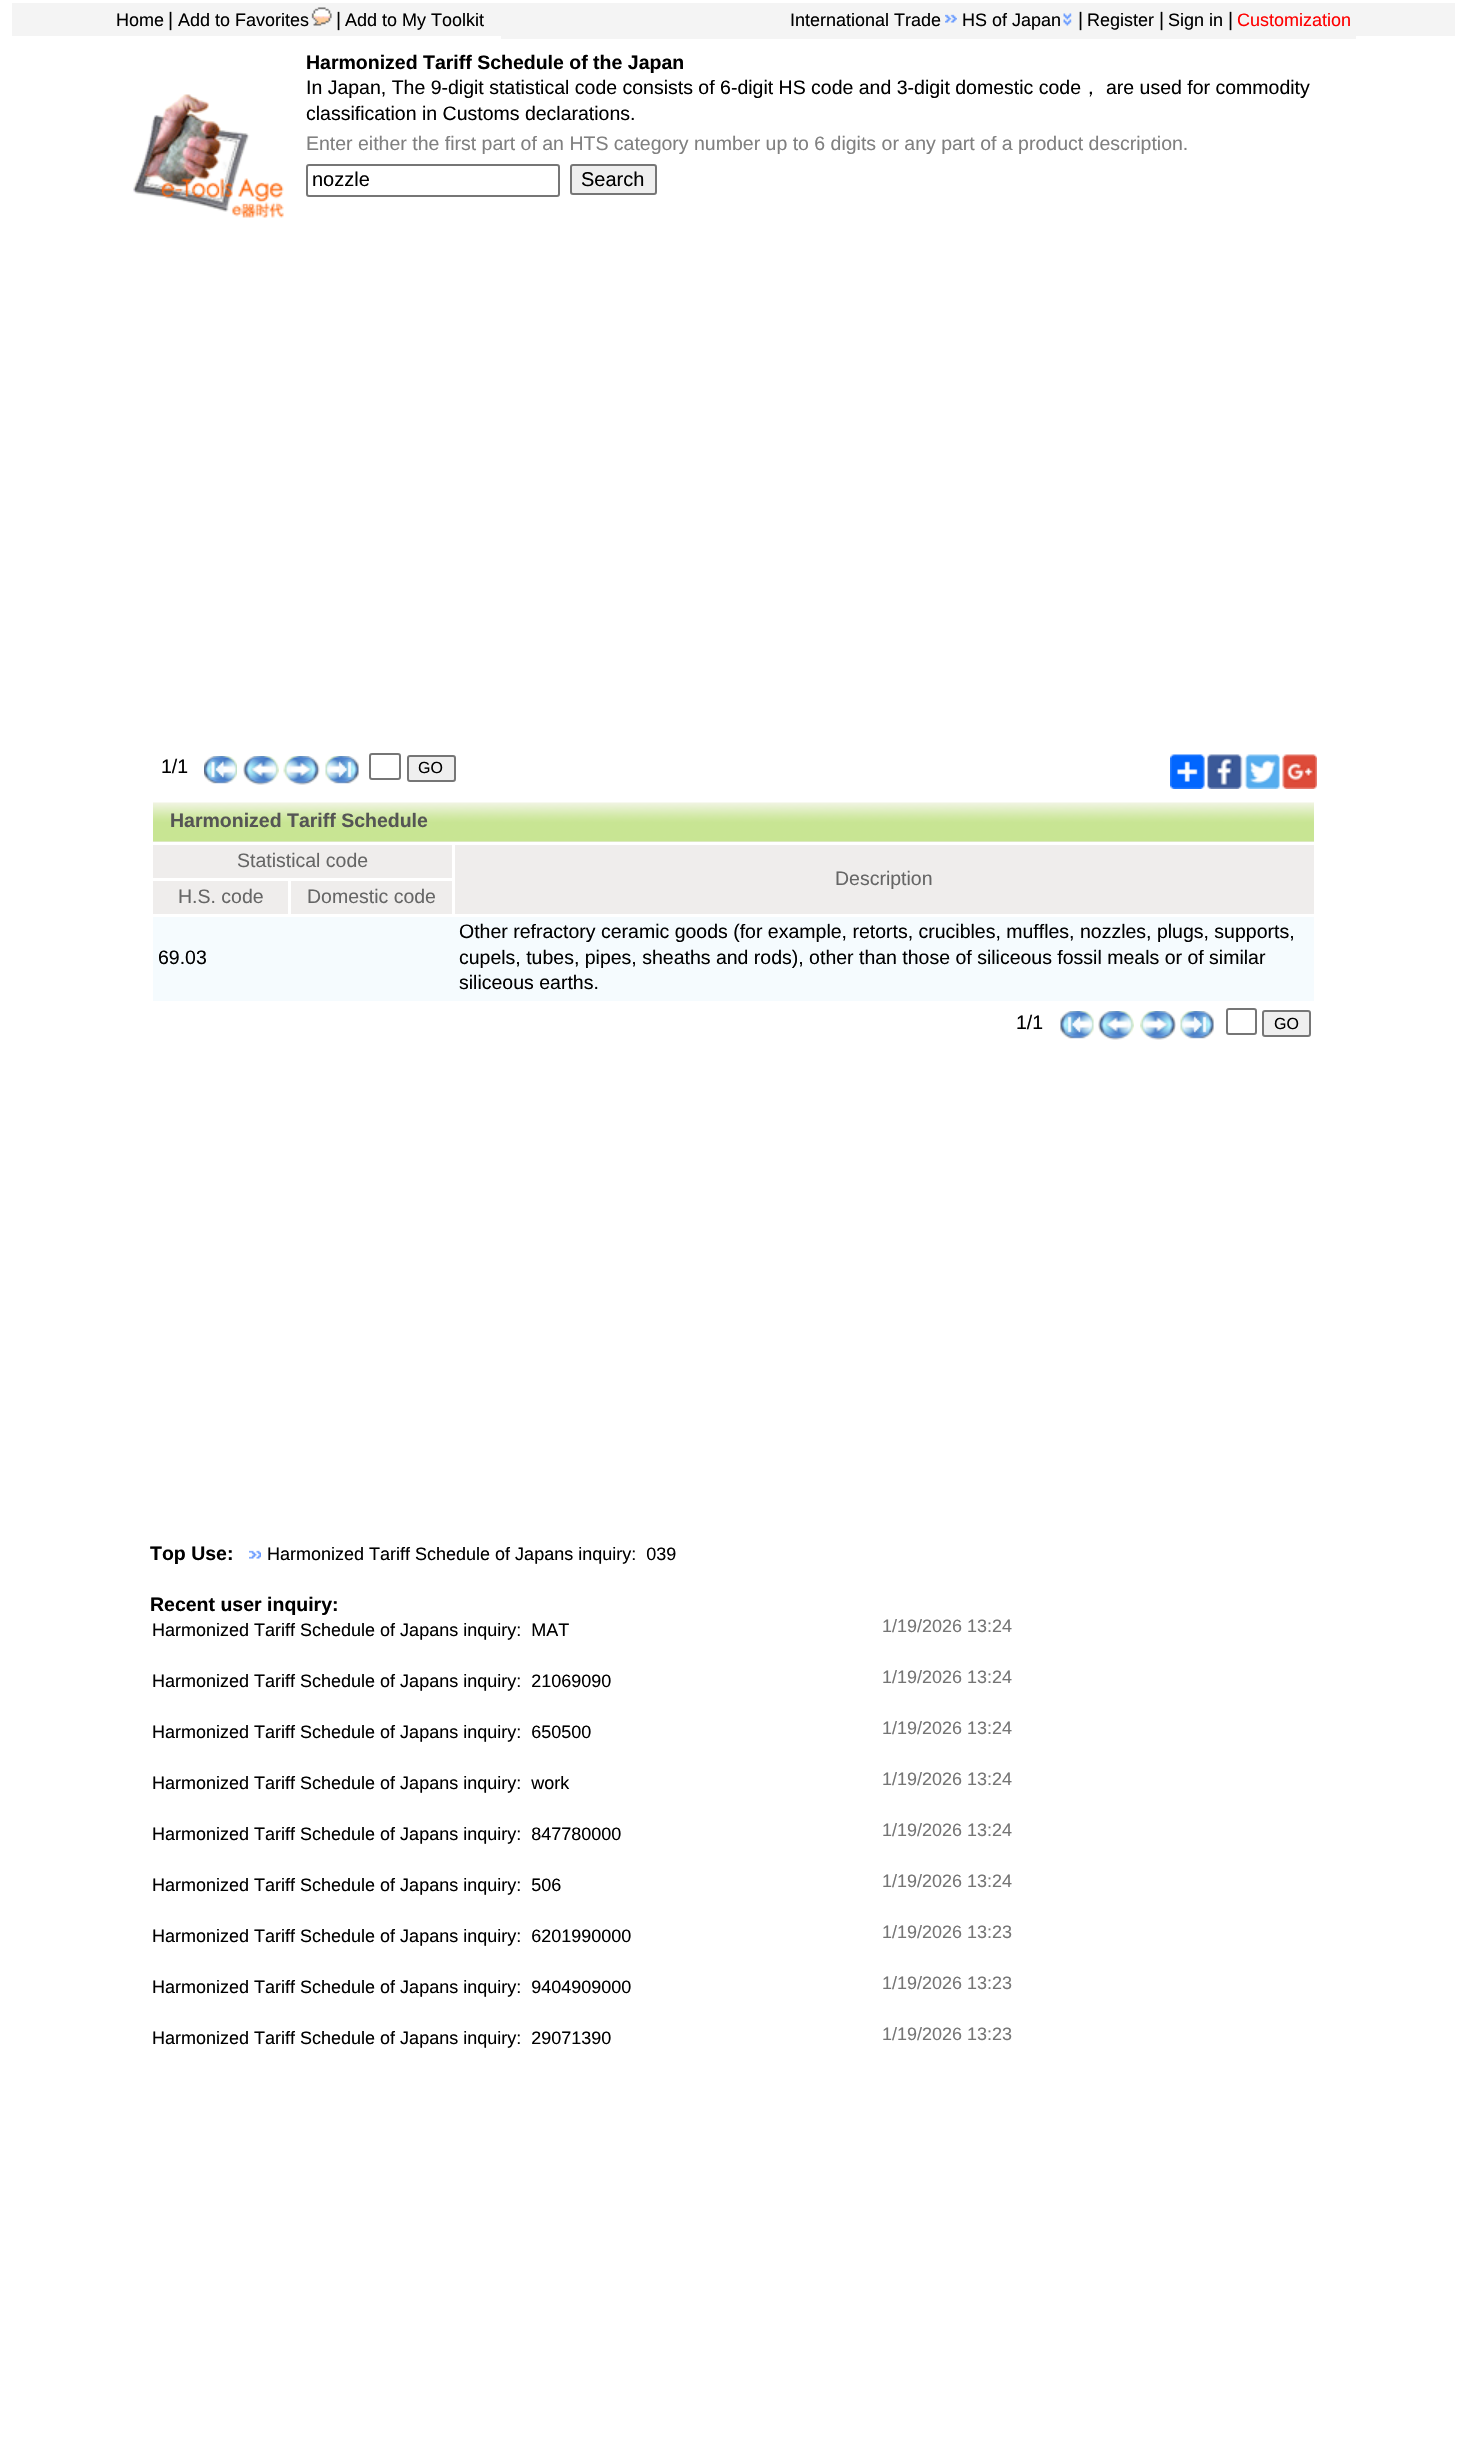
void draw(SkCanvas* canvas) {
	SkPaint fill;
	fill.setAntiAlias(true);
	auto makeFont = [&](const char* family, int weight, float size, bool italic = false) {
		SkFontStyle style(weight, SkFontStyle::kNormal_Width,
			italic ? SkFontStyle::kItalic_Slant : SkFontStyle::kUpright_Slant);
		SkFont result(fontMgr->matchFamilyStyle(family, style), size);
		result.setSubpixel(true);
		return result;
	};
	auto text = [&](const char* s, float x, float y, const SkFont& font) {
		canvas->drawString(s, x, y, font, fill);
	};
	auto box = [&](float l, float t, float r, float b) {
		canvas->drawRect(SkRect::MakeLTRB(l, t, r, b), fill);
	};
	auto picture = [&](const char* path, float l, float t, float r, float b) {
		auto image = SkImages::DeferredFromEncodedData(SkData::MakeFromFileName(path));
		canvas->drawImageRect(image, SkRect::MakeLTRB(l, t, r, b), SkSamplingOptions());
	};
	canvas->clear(0xFFFFFFFF);
	fill.setColor(0xFFF4F4F4);
	box(12, 3, 1455, 36);
	picture("image0.png", 311, 7, 332, 26);
	box(501, 36, 1356, 39);
	picture("image1.png", 945, 14, 957, 23);
	picture("image2.png", 1063, 13, 1072, 26);
	picture("image3.png", 133, 94, 284, 218);
	fill.setStyle(SkPaint::kStroke_Style);
	fill.setStrokeWidth(2);
	fill.setColor(0xFF767676);
	canvas->drawRoundRect(SkRect::MakeLTRB(307, 165, 559, 196), 2, 2, fill);
	fill.setStyle(SkPaint::kFill_Style);
	fill.setColor(0xFFEFEFEF);
	canvas->drawRoundRect(SkRect::MakeLTRB(571, 165, 656, 194), 2, 2, fill);
	fill.setStyle(SkPaint::kStroke_Style);
	fill.setColor(0xFF767676);
	canvas->drawRoundRect(SkRect::MakeLTRB(571, 165, 656, 194), 2, 2, fill);
	picture("image4.png", 204, 756, 237, 784);
	picture("image5.png", 243, 756, 279, 785);
	picture("image6.png", 283, 756, 320, 785);
	picture("image7.png", 325, 756, 359, 784);
	canvas->drawRoundRect(SkRect::MakeLTRB(370, 754, 400, 779), 2, 2, fill);
	fill.setStyle(SkPaint::kFill_Style);
	fill.setColor(0xFFEFEFEF);
	canvas->drawRoundRect(SkRect::MakeLTRB(408, 756, 455, 781), 2, 2, fill);
	fill.setStyle(SkPaint::kStroke_Style);
	fill.setColor(0xFF767676);
	canvas->drawRoundRect(SkRect::MakeLTRB(408, 756, 455, 781), 2, 2, fill);
	picture("image8.png", 1170, 754, 1205, 789);
	picture("image9.png", 1207, 754, 1243, 789);
	picture("image10.png", 1244, 754, 1280, 789);
	picture("image11.png", 1282, 754, 1317, 789);
	fill.setStyle(SkPaint::kFill_Style);
	fill.setColor(0xFFEFEDEC);
	box(153, 841, 1314, 842);
	picture("image12.png", 153, 802, 1314, 842);
	box(153, 845, 452, 878);
	box(455, 845, 1314, 914);
	box(153, 881, 288, 914);
	box(291, 881, 452, 914);
	fill.setColor(0xFFF5FBFE);
	box(153, 917, 1314, 1001);
	picture("image13.png", 1060, 1011, 1094, 1039);
	picture("image14.png", 1098, 1011, 1134, 1040);
	picture("image15.png", 1140, 1011, 1176, 1040);
	picture("image16.png", 1180, 1011, 1214, 1039);
	fill.setStyle(SkPaint::kStroke_Style);
	fill.setColor(0xFF767676);
	canvas->drawRoundRect(SkRect::MakeLTRB(1227, 1009, 1256, 1034), 2, 2, fill);
	fill.setStyle(SkPaint::kFill_Style);
	fill.setColor(0xFFEFEFEF);
	canvas->drawRoundRect(SkRect::MakeLTRB(1263, 1011, 1310, 1036), 2, 2, fill);
	fill.setStyle(SkPaint::kStroke_Style);
	fill.setColor(0xFF767676);
	canvas->drawRoundRect(SkRect::MakeLTRB(1263, 1011, 1310, 1036), 2, 2, fill);
	picture("image17.png", 249, 1550, 261, 1559);
	auto font1 = makeFont("Liberation Sans", 400, 18);
	fill.setStyle(SkPaint::kFill_Style);
	fill.setColor(0xFF000000);
	text("Home", 116, 26, font1);
	auto font2 = makeFont("Liberation Sans", 400, 19.5f);
	text("|", 168, 26, font2);
	text("Add to Favorites", 178, 26, font1);
	text("|", 336, 26, font2);
	text("Add to My Toolkit", 345, 26, font1);
	text("International Trade", 790, 26, font1);
	text("HS of Japan", 962, 26, font1);
	text("|", 1078, 26, font2);
	text("Register", 1087, 26, font1);
	text("|", 1159, 26, font2);
	text("Sign in", 1168, 26, font1);
	text("|", 1228, 26, font2);
	fill.setColor(0xFFFF0000);
	text("Customization", 1237, 26, font1);
	auto font3 = makeFont("Liberation Sans", 700, 19.5f);
	fill.setColor(0xFF000000);
	text("Harmonized Tariff Schedule of the Japan", 306, 69, font3);
	text("In Japan, The 9-digit statistical code consists of 6-digit HS code and 3-digit domestic code", 306, 94, font2);
	auto font4 = makeFont("WenQuanYi Zen Hei", 500, 19.5f);
	text("，", 1081, 94, font4);
	text("are used for commodity", 1106, 94, font2);
	text("classification in Customs declarations.", 306, 120, font2);
	fill.setColor(0xFF808080);
	text("Enter either the first part of an HTS category number up to 6 digits or any part of a product description.", 306, 150, font2);
	auto font5 = makeFont("Liberation Sans", 400, 20);
	fill.setColor(0xFF000000);
	text("nozzle", 312, 186, font5);
	text("Search", 581, 186, font5);
	text("1/1", 161, 773, font2);
	auto font6 = makeFont("Liberation Sans", 400, 16);
	text("GO", 418, 773, font6);
	fill.setColor(0xFF555555);
	text("Harmonized Tariff Schedule", 170, 827, font3);
	fill.setColor(0xFF666666);
	text("Statistical code", 237, 867, font2);
	text("Description", 835, 885, font2);
	text("H.S. code", 178, 903, font2);
	text("Domestic code", 307, 903, font2);
	fill.setColor(0xFF000000);
	text("69.03", 158, 964, font2);
	text("Other refractory ceramic goods (for example, retorts, crucibles, muffles, nozzles, plugs, supports,", 459, 938, font2);
	text("cupels, tubes, pipes, sheaths and rods), other than those of siliceous fossil meals or of similar", 459, 964, font2);
	text("siliceous earths.", 459, 989, font2);
	text("1/1", 1016, 1029, font2);
	text("GO", 1274, 1029, font6);
	text("Top Use:", 150, 1560, font3);
	text("Harmonized Tariff Schedule of Japans inquiry:  039", 267, 1560, font1);
	text("Recent user inquiry:", 150, 1611, font3);
	text("Harmonized Tariff Schedule of Japans inquiry:  MAT", 152, 1636, font1);
	fill.setColor(0xFF757575);
	text("1/19/2026 13:24", 882, 1632, font1);
	fill.setColor(0xFF000000);
	text("Harmonized Tariff Schedule of Japans inquiry:  21069090", 152, 1687, font1);
	fill.setColor(0xFF757575);
	text("1/19/2026 13:24", 882, 1683, font1);
	fill.setColor(0xFF000000);
	text("Harmonized Tariff Schedule of Japans inquiry:  650500", 152, 1738, font1);
	fill.setColor(0xFF757575);
	text("1/19/2026 13:24", 882, 1734, font1);
	fill.setColor(0xFF000000);
	text("Harmonized Tariff Schedule of Japans inquiry:  work", 152, 1789, font1);
	fill.setColor(0xFF757575);
	text("1/19/2026 13:24", 882, 1785, font1);
	fill.setColor(0xFF000000);
	text("Harmonized Tariff Schedule of Japans inquiry:  847780000", 152, 1840, font1);
	fill.setColor(0xFF757575);
	text("1/19/2026 13:24", 882, 1836, font1);
	fill.setColor(0xFF000000);
	text("Harmonized Tariff Schedule of Japans inquiry:  506", 152, 1891, font1);
	fill.setColor(0xFF757575);
	text("1/19/2026 13:24", 882, 1887, font1);
	fill.setColor(0xFF000000);
	text("Harmonized Tariff Schedule of Japans inquiry:  6201990000", 152, 1942, font1);
	fill.setColor(0xFF757575);
	text("1/19/2026 13:23", 882, 1938, font1);
	fill.setColor(0xFF000000);
	text("Harmonized Tariff Schedule of Japans inquiry:  9404909000", 152, 1993, font1);
	fill.setColor(0xFF757575);
	text("1/19/2026 13:23", 882, 1989, font1);
	fill.setColor(0xFF000000);
	text("Harmonized Tariff Schedule of Japans inquiry:  29071390", 152, 2044, font1);
	fill.setColor(0xFF757575);
	text("1/19/2026 13:23", 882, 2040, font1);
}
